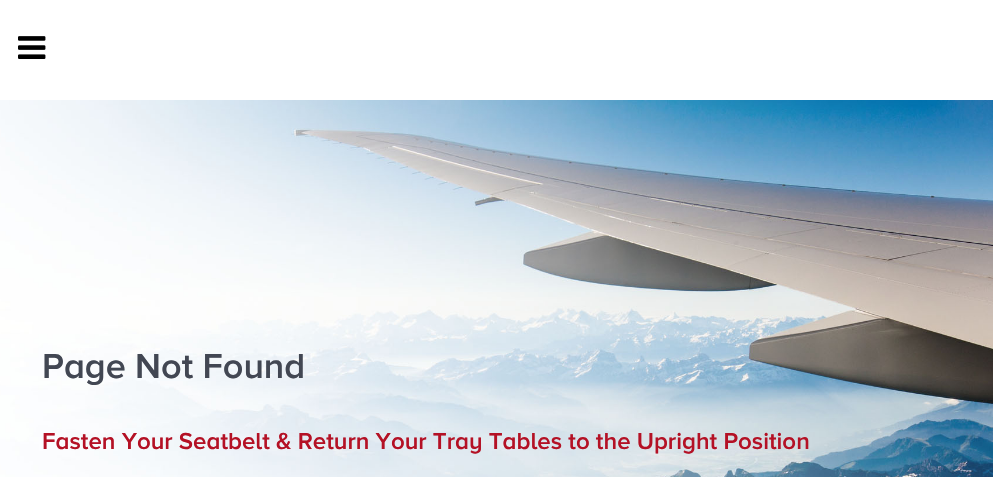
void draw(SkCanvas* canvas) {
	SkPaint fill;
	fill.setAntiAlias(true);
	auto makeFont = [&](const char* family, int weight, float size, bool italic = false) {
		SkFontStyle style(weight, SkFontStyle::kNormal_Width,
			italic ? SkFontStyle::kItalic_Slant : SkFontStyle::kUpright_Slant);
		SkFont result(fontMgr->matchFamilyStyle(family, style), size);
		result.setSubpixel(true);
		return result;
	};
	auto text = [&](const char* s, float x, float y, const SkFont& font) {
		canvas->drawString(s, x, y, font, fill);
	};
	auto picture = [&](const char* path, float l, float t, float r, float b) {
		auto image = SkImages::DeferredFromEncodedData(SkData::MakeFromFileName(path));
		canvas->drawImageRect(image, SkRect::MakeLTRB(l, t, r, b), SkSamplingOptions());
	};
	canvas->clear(0xFFFFFFFF);
	picture("image0.png", 18, 36, 46, 59);
	picture("image1.png", 0, 100, 993, 477);
	auto font1 = makeFont("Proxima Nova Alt", 600, 36);
	fill.setColor(0xFF424753);
	text("Page Not Found", 42, 378, font1);
	auto font2 = makeFont("Proxima Nova Alt", 600, 24);
	fill.setColor(0xFFB41125);
	text("Fasten Your Seatbelt & Return Your Tray Tables to the Upright Position", 42, 449, font2);
}
